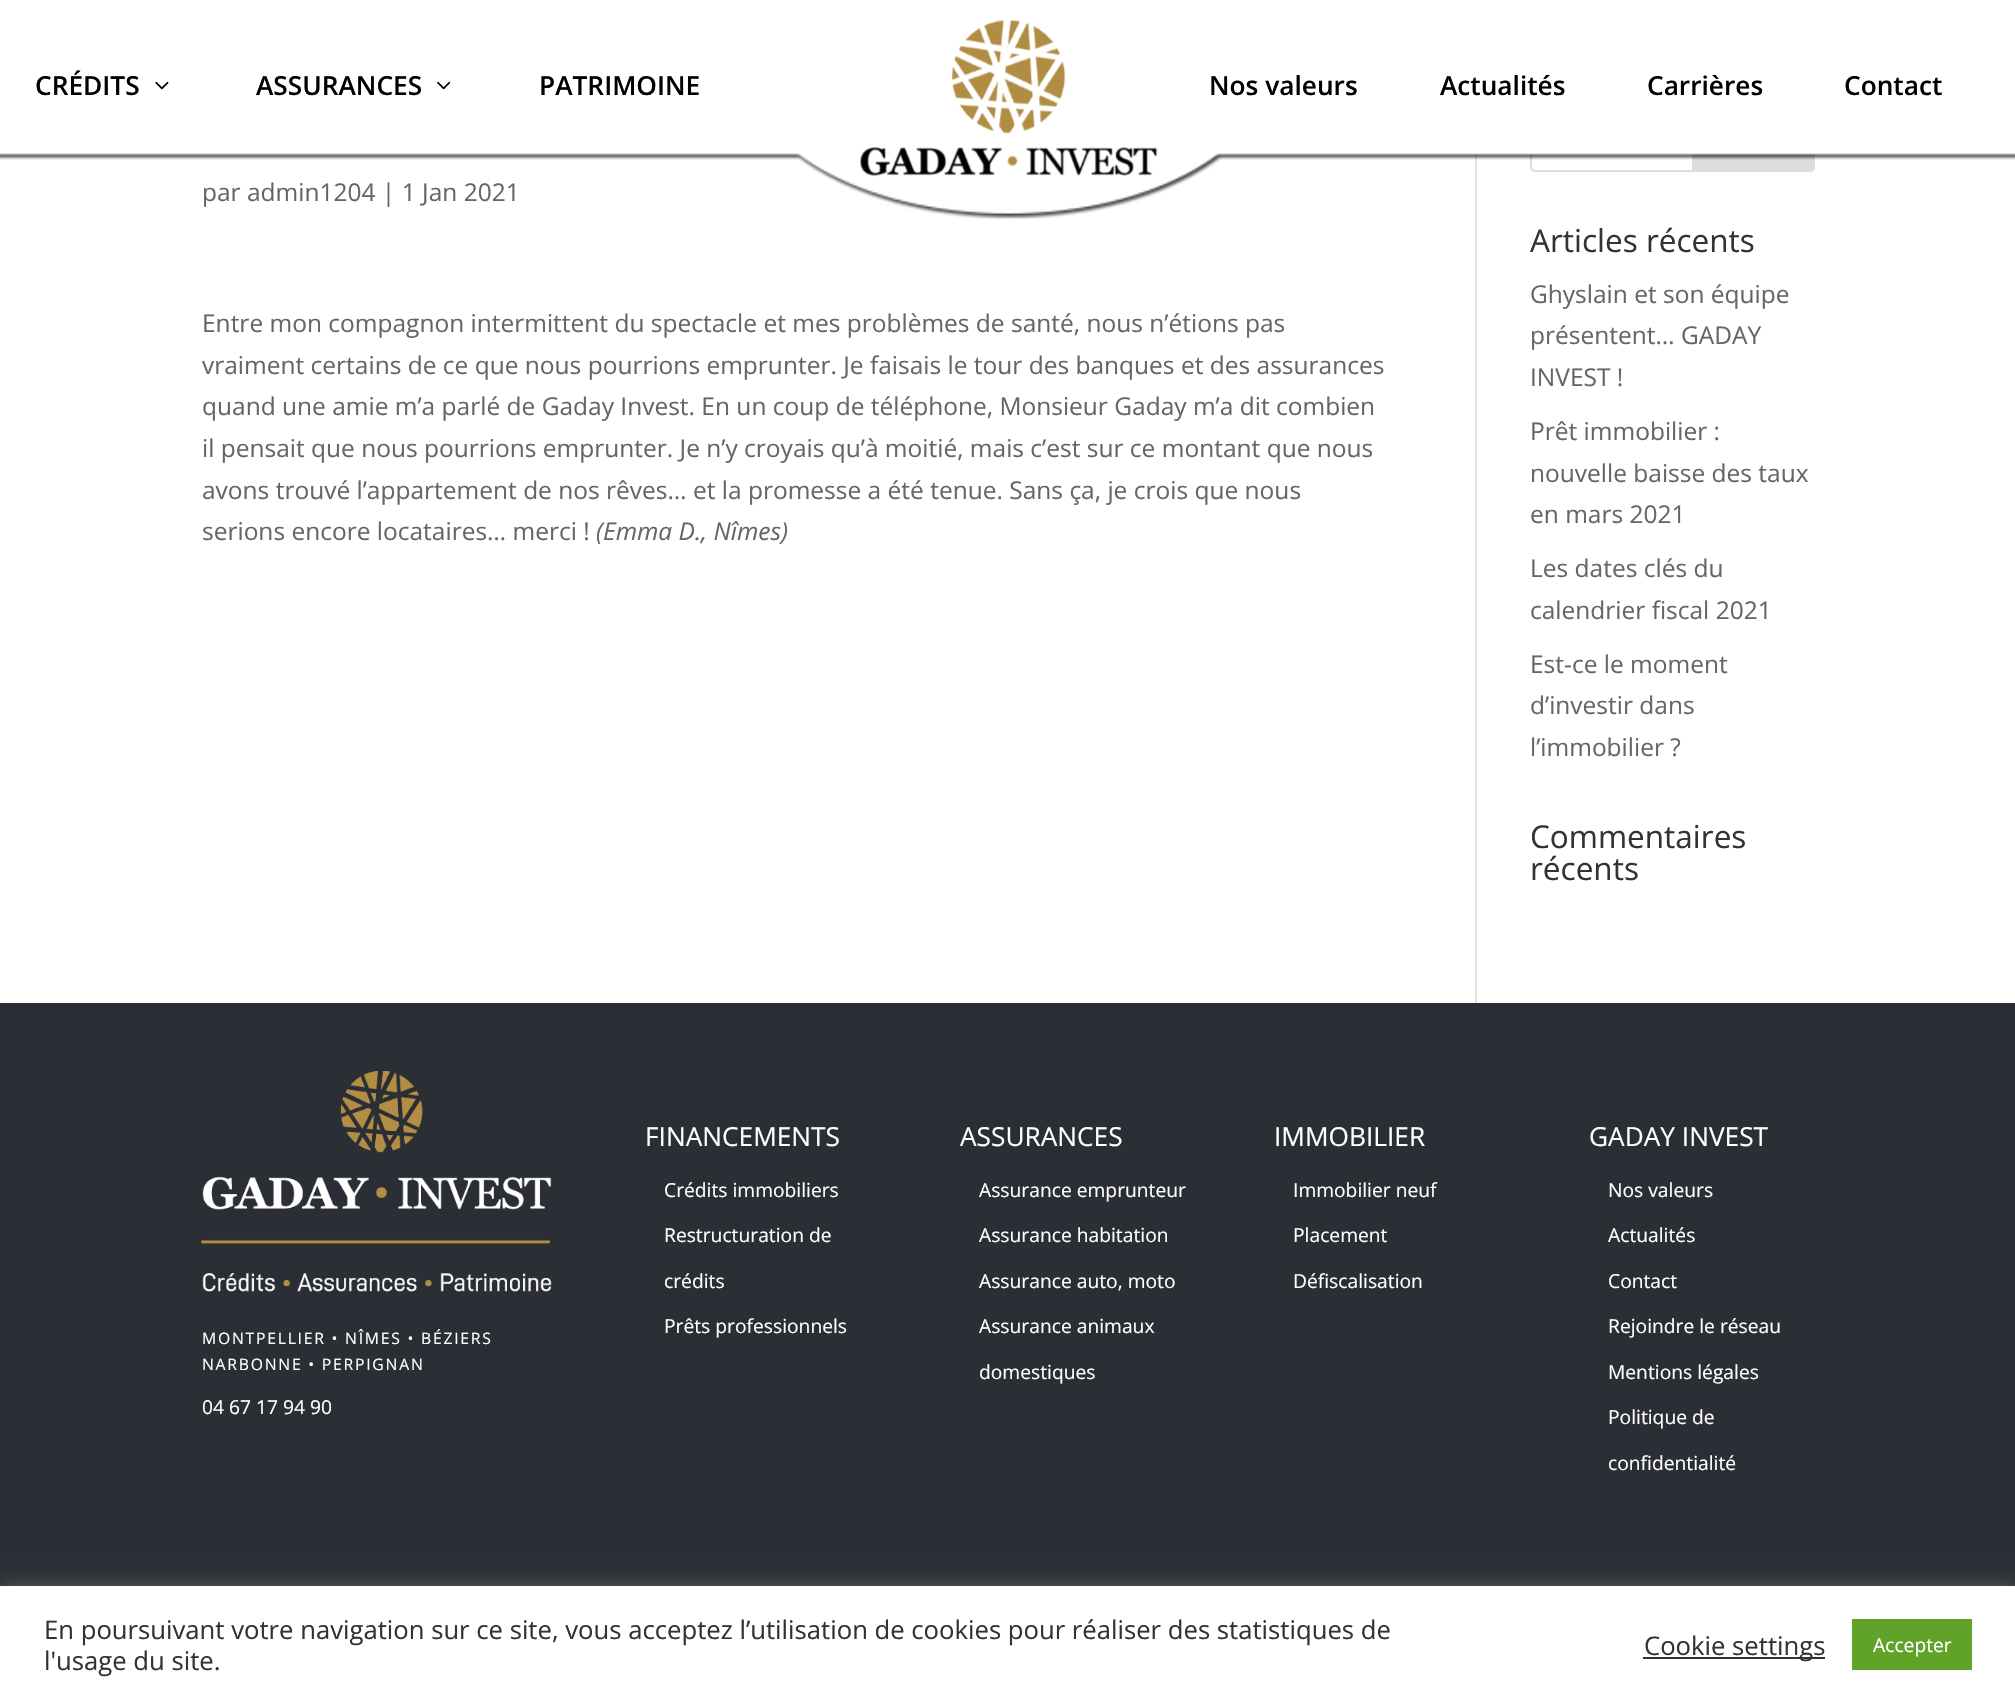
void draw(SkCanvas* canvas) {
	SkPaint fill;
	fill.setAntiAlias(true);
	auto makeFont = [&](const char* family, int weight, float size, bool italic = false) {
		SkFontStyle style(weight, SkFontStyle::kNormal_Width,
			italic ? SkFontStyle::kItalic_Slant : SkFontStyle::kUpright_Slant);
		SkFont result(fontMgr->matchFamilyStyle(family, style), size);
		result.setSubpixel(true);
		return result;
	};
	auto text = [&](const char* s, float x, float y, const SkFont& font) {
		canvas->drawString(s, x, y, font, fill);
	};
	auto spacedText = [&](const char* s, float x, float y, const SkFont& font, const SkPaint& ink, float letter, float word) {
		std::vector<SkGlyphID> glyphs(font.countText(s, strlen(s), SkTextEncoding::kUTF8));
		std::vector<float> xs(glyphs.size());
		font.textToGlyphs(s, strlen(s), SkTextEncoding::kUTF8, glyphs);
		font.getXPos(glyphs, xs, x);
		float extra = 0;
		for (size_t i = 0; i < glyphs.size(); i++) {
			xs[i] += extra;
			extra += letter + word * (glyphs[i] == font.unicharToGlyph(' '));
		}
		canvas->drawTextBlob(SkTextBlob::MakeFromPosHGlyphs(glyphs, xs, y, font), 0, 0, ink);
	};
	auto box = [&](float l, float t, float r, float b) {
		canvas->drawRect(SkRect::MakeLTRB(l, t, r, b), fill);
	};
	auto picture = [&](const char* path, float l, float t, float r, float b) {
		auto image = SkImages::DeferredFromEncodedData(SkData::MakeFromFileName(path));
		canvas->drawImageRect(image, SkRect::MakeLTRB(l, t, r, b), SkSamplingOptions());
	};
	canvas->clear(0xFFFFFFFF);
	fill.setStyle(SkPaint::kStroke_Style);
	fill.setStrokeWidth(2);
	fill.setColor(0xFFDDDDDD);
	canvas->drawRoundRect(SkRect::MakeLTRB(1531, 103, 1814, 171), 4, 4, fill);
	fill.setStyle(SkPaint::kFill_Style);
	canvas->drawPath(SkPathBuilder().moveTo(1693, 103).lineTo(1810, 103).cubicTo(1812, 103, 1814, 105, 1814, 107).lineTo(1814, 167).cubicTo(1814, 169, 1812, 171, 1810, 171).lineTo(1693, 171).close().detach(), fill);
	fill.setStyle(SkPaint::kStroke_Style);
	canvas->drawPath(SkPathBuilder().moveTo(1693, 103).lineTo(1810, 103).cubicTo(1812, 103, 1814, 105, 1814, 107).lineTo(1814, 167).cubicTo(1814, 169, 1812, 171, 1810, 171).lineTo(1693, 171).close().detach(), fill);
	fill.setStyle(SkPaint::kFill_Style);
	fill.setColor(0xFFFFFFFF);
	box(1530, 102, 1815, 152);
	picture("image1.png", 155, 81, 169, 90);
	picture("image2.png", 437, 81, 451, 90);
	fill.setColor(0xFFE2E2E2);
	box(1475, 153, 1477, 1003);
	fill.setColor(0xFF2C2E35);
	box(0, 1003, 2015, 1586);
	picture("image4.png", 201, 1071, 552, 1292);
	fill.setColor(0x4DACABAB);
	fill.setMaskFilter(SkMaskFilter::MakeBlur(kNormal_SkBlurStyle, 9));
	canvas->drawRect(SkRect::MakeLTRB(0, 1584, 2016, 1701), fill);
	fill.setMaskFilter(nullptr);
	fill.setColor(0xFFFFFFFF);
	box(0, 1586, 2015, 1702);
	fill.setColor(0xFF333333);
	box(1643, 1657, 1825, 1659);
	fill.setColor(0xFF61A229);
	box(1852, 1619, 1972, 1670);
	auto font1 = makeFont("Open Sans", 600, 26.25f);
	fill.setColor(0xFF000000);
	text("CRÉDITS", 35, 95, font1);
	text("ASSURANCES", 256, 95, font1);
	text("PATRIMOINE", 539, 95, font1);
	text("Nos valeurs", 1209, 95, font1);
	text("Actualités", 1440, 95, font1);
	text("Carrières", 1647, 95, font1);
	text("Contact", 1844, 95, font1);
	auto font2 = makeFont("Open Sans", 400, 24.5f);
	fill.setColor(0xFF666666);
	text("par admin1204 | 1 Jan 2021", 202, 201, font2);
	picture("image3.png", 0, 152, 2015, 219);
	picture("image0.png", 860, 20, 1158, 177);
	text("Entre mon compagnon intermittent du spectacle et mes problèmes de santé, nous n’étions pas", 202, 332, font2);
	text("vraiment certains de ce que nous pourrions emprunter. Je faisais le tour des banques et des assurances", 202, 374, font2);
	text("quand une amie m’a parlé de Gaday Invest. En un coup de téléphone, Monsieur Gaday m’a dit combien", 202, 415, font2);
	text("il pensait que nous pourrions emprunter. Je n’y croyais qu’à moitié, mais c’est sur ce montant que nous", 202, 457, font2);
	text("avons trouvé l’appartement de nos rêves… et la promesse a été tenue. Sans ça, je crois que nous", 202, 499, font2);
	text("serions encore locataires… merci !", 202, 540, font2);
	auto font3 = makeFont("Open Sans", 400, 24.5f, true);
	text("(Emma D., Nîmes)", 596, 540, font3);
	auto font4 = makeFont("Open Sans", 400, 31.5f);
	fill.setColor(0xFF333333);
	text("Articles récents", 1530, 252, font4);
	fill.setColor(0xFF666666);
	text("Ghyslain et son équipe", 1530, 303, font2);
	text("présentent… GADAY", 1530, 344, font2);
	text("INVEST !", 1530, 386, font2);
	text("Prêt immobilier :", 1530, 440, font2);
	text("nouvelle baisse des taux", 1530, 482, font2);
	text("en mars 2021", 1530, 523, font2);
	text("Les dates clés du", 1530, 577, font2);
	text("calendrier fiscal 2021", 1530, 619, font2);
	text("Est-ce le moment", 1530, 673, font2);
	text("d’investir dans", 1530, 714, font2);
	text("l’immobilier ?", 1530, 756, font2);
	fill.setColor(0xFF333333);
	text("Commentaires", 1530, 848, font4);
	text("récents", 1530, 880, font4);
	auto font5 = makeFont("Open Sans", 400, 15.75f);
	fill.setColor(0xFFFFFFFF);
	spacedText("MONTPELLIER • NÎMES • BÉZIERS", 202, 1344, font5, fill, 1.75f, 0);
	spacedText("NARBONNE • PERPIGNAN", 202, 1370, font5, fill, 1.75f, 0);
	auto font6 = makeFont("Open Sans", 400, 19.25f);
	text("04 67 17 94 90", 202, 1414, font6);
	auto font7 = makeFont("Open Sans", 400, 26.25f);
	text("FINANCEMENTS", 645, 1146, font7);
	text("Crédits immobiliers", 664, 1197, font6);
	text("Restructuration de", 664, 1242, font6);
	text("crédits", 664, 1288, font6);
	text("Prêts professionnels", 664, 1333, font6);
	text("ASSURANCES", 960, 1146, font7);
	text("Assurance emprunteur", 979, 1197, font6);
	text("Assurance habitation", 979, 1242, font6);
	text("Assurance auto, moto", 979, 1288, font6);
	text("Assurance animaux", 979, 1333, font6);
	text("domestiques", 979, 1379, font6);
	text("IMMOBILIER", 1274, 1146, font7);
	text("Immobilier neuf", 1293, 1197, font6);
	text("Placement", 1293, 1242, font6);
	text("Défiscalisation", 1293, 1288, font6);
	text("GADAY INVEST", 1589, 1146, font7);
	text("Nos valeurs", 1608, 1197, font6);
	text("Actualités", 1608, 1242, font6);
	text("Contact", 1608, 1288, font6);
	text("Rejoindre le réseau", 1608, 1333, font6);
	text("Mentions légales", 1608, 1379, font6);
	text("Politique de", 1608, 1424, font6);
	text("confidentialité", 1608, 1470, font6);
	auto font8 = makeFont("Open Sans", 400, 25.67f);
	fill.setColor(0xFF333333);
	text("En poursuivant votre navigation sur ce site, vous acceptez l’utilisation de cookies pour réaliser des statistiques de", 44, 1639, font8);
	text("l'usage du site.", 44, 1670, font8);
	text("Cookie settings", 1644, 1655, font8);
	fill.setColor(0xFFFFFFFF);
	text("Accepter", 1873, 1652, font6);
}
